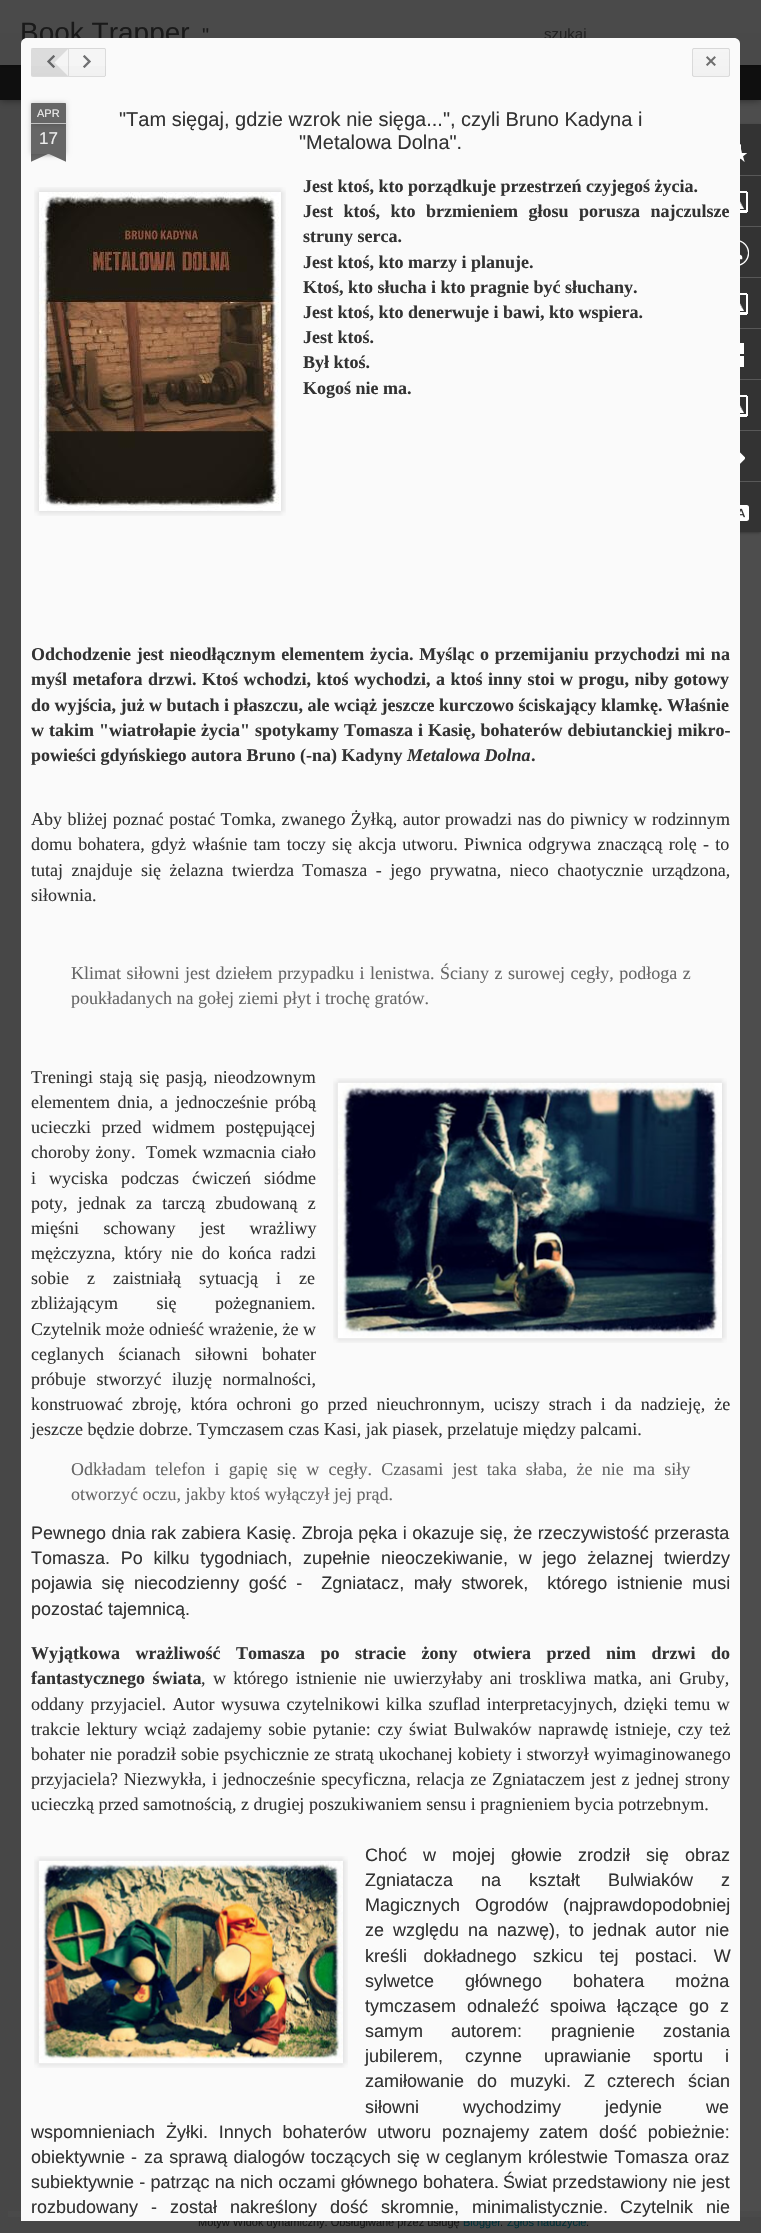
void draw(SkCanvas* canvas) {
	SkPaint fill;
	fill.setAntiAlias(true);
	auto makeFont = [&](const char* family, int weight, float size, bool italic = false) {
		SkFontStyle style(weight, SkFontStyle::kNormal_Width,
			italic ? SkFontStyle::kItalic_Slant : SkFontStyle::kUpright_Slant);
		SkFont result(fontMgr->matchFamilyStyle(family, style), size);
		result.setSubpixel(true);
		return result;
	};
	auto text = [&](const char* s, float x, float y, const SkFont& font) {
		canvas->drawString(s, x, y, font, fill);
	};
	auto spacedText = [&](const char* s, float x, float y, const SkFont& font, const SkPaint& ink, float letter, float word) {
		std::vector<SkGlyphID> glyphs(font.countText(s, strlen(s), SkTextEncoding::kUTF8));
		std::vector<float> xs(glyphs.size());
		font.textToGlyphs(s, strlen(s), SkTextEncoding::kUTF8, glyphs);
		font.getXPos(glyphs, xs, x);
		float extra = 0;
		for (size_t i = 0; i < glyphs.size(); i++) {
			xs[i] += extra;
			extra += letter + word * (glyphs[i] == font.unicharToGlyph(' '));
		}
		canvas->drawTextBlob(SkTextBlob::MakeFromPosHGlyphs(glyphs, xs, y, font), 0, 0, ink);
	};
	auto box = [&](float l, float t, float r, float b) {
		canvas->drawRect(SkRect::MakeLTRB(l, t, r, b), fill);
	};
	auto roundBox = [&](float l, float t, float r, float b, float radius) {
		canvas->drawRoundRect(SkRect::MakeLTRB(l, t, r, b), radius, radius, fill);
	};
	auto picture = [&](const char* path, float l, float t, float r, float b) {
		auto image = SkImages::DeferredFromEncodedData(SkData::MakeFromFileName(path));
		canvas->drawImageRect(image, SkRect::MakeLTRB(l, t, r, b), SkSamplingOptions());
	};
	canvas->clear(0xFF474747);
	fill.setColor(0xFF4D4D4D);
	box(740, 100, 761, 2211);
	fill.setColor(0x80000000);
	fill.setMaskFilter(SkMaskFilter::MakeBlur(kNormal_SkBlurStyle, 4));
	canvas->drawRect(SkRect::MakeLTRB(0, 65, 761, 100), fill);
	fill.setMaskFilter(nullptr);
	fill.setColor(0xFF0F0F0F);
	box(0, 65, 761, 100);
	fill.setColor(0x4D000000);
	fill.setMaskFilter(SkMaskFilter::MakeBlur(kNormal_SkBlurStyle, 2.5f));
	canvas->drawRect(SkRect::MakeLTRB(0, 0, 761, 65), fill);
	fill.setMaskFilter(nullptr);
	{
		const SkColor colors[] = {0xFF4A4A4A, 0xFF494949};
		const float stops[] = {0, 1};
		const SkPoint ends[] = {{0, 0}, {0, 65}};
		fill.setShader(SkGradientShader::MakeLinear(ends, colors, stops, 2, SkTileMode::kClamp));
		fill.setAlpha(255);
	}
	box(0, 0, 761, 65);
	fill.setShader(nullptr);
	fill.setColor(0x4D000000);
	fill.setMaskFilter(SkMaskFilter::MakeBlur(kNormal_SkBlurStyle, 1.5f));
	canvas->drawRoundRect(SkRect::MakeLTRB(711, 125, 761, 533), 2, 2, fill);
	fill.setMaskFilter(nullptr);
	fill.setColor(0xFF333333);
	box(740, 176, 761, 481);
	box(740, 124, 761, 175);
	picture("image8.png", 740, 144, 747, 162);
	fill.setColor(0xFF585858);
	box(740, 175, 761, 176);
	picture("image9.png", 740, 191, 748, 213);
	box(740, 226, 761, 227);
	picture("image10.png", 740, 240, 749, 266);
	box(740, 277, 761, 278);
	picture("image9.png", 740, 293, 748, 315);
	box(740, 328, 761, 329);
	picture("image11.png", 740, 343, 744, 367);
	box(740, 379, 761, 380);
	picture("image9.png", 740, 395, 748, 417);
	box(740, 430, 761, 431);
	picture("image12.png", 740, 452, 745, 464);
	fill.setColor(0xFF333333);
	box(740, 482, 761, 532);
	fill.setColor(0xFF585858);
	box(740, 481, 761, 482);
	picture("image13.png", 740, 505, 749, 521);
	{
		const SkColor colors[] = {0xFF4A4A4A, 0xFF484848};
		const float stops[] = {0, 1};
		const SkPoint ends[] = {{394, 2211}, {394, 2233}};
		fill.setShader(SkGradientShader::MakeLinear(ends, colors, stops, 2, SkTileMode::kClamp));
		fill.setAlpha(255);
	}
	box(8, 2211, 761, 2217);
	auto font1 = makeFont("Liberation Sans", 400, 28);
	fill.setShader(nullptr);
	fill.setColor(0xFF1A1A1A);
	text("Book Trapper", 20, 42, font1);
	auto font2 = makeFont("Liberation Sans", 400, 20);
	text("\"", 202, 42, font2);
	auto font3 = makeFont("Liberation Sans", 400, 15);
	fill.setColor(0xFF232323);
	text("szukaj", 544, 39, font3);
	auto font4 = makeFont("Liberation Sans", 400, 11);
	fill.setColor(0xFF141414);
	text("Motyw Widok dynamiczny. Obsługiwane przez usługę", 198, 2226, font4);
	fill.setColor(0xFF002F37);
	text("Blogger", 463, 2226, font4);
	fill.setColor(0xFF141414);
	text(".", 500, 2226, font4);
	fill.setColor(0xFF002F37);
	text("Zgłoś nadużycie", 507, 2226, font4);
	fill.setColor(0xFFFAFAFA);
	canvas->drawPath(SkPathBuilder().moveTo(27, 38).lineTo(734, 38).cubicTo(737.5f, 38, 740, 40.5f, 740, 44).lineTo(740, 2221).lineTo(21, 2221).lineTo(21, 44).cubicTo(21, 40.5f, 23.5f, 38, 27, 38).close().detach(), fill);
	fill.setColor(0xFFF5F5F5);
	roundBox(692, 48, 730, 77, 2);
	canvas->save();
	canvas->clipPath(SkPathBuilder().moveTo(694, 48).lineTo(728, 48).cubicTo(729, 48, 730, 49, 730, 50).lineTo(730, 75).cubicTo(730, 76, 729, 77, 728, 77).lineTo(694, 77).cubicTo(693, 77, 692, 76, 692, 75).lineTo(692, 50).cubicTo(692, 49, 693, 48, 694, 48).close().detach(), true);
	{
		const SkColor colors[] = {0xFFF5F5F5, 0xFFF1F1F1};
		const float stops[] = {0, 1};
		const SkPoint ends[] = {{711, 49}, {711, 76}};
		fill.setShader(SkGradientShader::MakeLinear(ends, colors, stops, 2, SkTileMode::kClamp));
		fill.setAlpha(255);
	}
	box(692, 49, 730, 76);
	{
		const SkColor colors[] = {0xFFF5F5F5, 0xFFF1F1F1};
		const float stops[] = {0, 1};
		const SkPoint ends[] = {{711, 22}, {711, 49}};
		fill.setShader(SkGradientShader::MakeLinear(ends, colors, stops, 2, SkTileMode::kClamp));
		fill.setAlpha(255);
	}
	box(692, 48, 730, 49);
	canvas->restore();
	fill.setStyle(SkPaint::kStroke_Style);
	fill.setStrokeWidth(1);
	fill.setShader(nullptr);
	fill.setColor(0x1A000000);
	canvas->drawRoundRect(SkRect::MakeLTRB(692.5f, 48.5f, 729.5f, 76.5f), 1.5f, 1.5f, fill);
	picture("image2.png", 706, 56, 716, 66);
	fill.setStyle(SkPaint::kFill_Style);
	fill.setColor(0xFFF5F5F5);
	canvas->drawPath(SkPathBuilder().moveTo(33, 48).lineTo(69, 48).lineTo(69, 77).lineTo(33, 77).cubicTo(32, 77, 31, 76, 31, 75).lineTo(31, 50).cubicTo(31, 49, 32, 48, 33, 48).close().detach(), fill);
	{
		const SkColor colors[] = {0xFFF5F5F5, 0xFFF1F1F1};
		const float stops[] = {0, 1};
		const SkPoint ends[] = {{50, 22}, {50, 49}};
		fill.setShader(SkGradientShader::MakeLinear(ends, colors, stops, 2, SkTileMode::kClamp));
		fill.setAlpha(255);
	}
	box(31, 48, 69, 49);
	fill.setShader(nullptr);
	fill.setColor(0x1A000000);
	canvas->drawPath(SkPathBuilder().moveTo(33, 48).lineTo(69, 48).lineTo(54.5f, 62.5f).lineTo(45.5f, 62.5f).lineTo(31.5f, 48.5f).close().detach(), fill);
	{
		const SkColor colors[] = {0xFFF5F5F5, 0xFFF1F1F1};
		const float stops[] = {0, 1};
		const SkPoint ends[] = {{50, 49}, {50, 76}};
		fill.setShader(SkGradientShader::MakeLinear(ends, colors, stops, 2, SkTileMode::kClamp));
		fill.setAlpha(255);
	}
	box(31, 66, 68, 76);
	fill.setShader(nullptr);
	fill.setColor(0x1A000000);
	canvas->drawPath(SkPathBuilder().moveTo(69, 77).lineTo(33, 77).lineTo(31.5f, 76.5f).lineTo(45.5f, 62.5f).lineTo(54.5f, 62.5f).close().detach(), fill);
	fill.setColor(0xFFF5F5F5);
	canvas->drawPath(SkPathBuilder().moveTo(68, 48).lineTo(104, 48).cubicTo(105, 48, 106, 49, 106, 50).lineTo(106, 75).cubicTo(106, 76, 105, 77, 104, 77).lineTo(68, 77).close().detach(), fill);
	{
		const SkColor colors[] = {0xFFF5F5F5, 0xFFF1F1F1};
		const float stops[] = {0, 1};
		const SkPoint ends[] = {{87, 49}, {87, 76}};
		fill.setShader(SkGradientShader::MakeLinear(ends, colors, stops, 2, SkTileMode::kClamp));
		fill.setAlpha(255);
	}
	box(68, 66, 106, 76);
	{
		const SkColor colors[] = {0xFFF5F5F5, 0xFFF1F1F1};
		const float stops[] = {0, 1};
		const SkPoint ends[] = {{87, 22}, {87, 49}};
		fill.setShader(SkGradientShader::MakeLinear(ends, colors, stops, 2, SkTileMode::kClamp));
		fill.setAlpha(255);
	}
	box(68, 48, 106, 49);
	fill.setStyle(SkPaint::kStroke_Style);
	fill.setShader(nullptr);
	fill.setColor(0x1A000000);
	canvas->drawPath(SkPathBuilder().moveTo(68.5f, 48.5f).lineTo(104, 48.5f).cubicTo(105, 48.5f, 105.5f, 49, 105.5f, 50).lineTo(105.5f, 75).cubicTo(105.5f, 76, 105, 76.5f, 104, 76.5f).lineTo(68.5f, 76.5f).close().detach(), fill);
	picture("image1.png", 83, 55, 91, 68);
	picture("image0.png", 47, 55, 55, 68);
	fill.setStyle(SkPaint::kFill_Style);
	canvas->drawPath(SkPathBuilder().moveTo(31.5f, 76.5f).lineTo(45.5f, 62.5f).lineTo(31.5f, 48.5f).lineTo(31, 50).lineTo(31, 75).close().detach(), fill);
	picture("image6.png", 34, 1856, 348, 2068);
	picture("image7.png", 38, 1860, 343, 2064);
	picture("image4.png", 333, 1078, 727, 1343);
	picture("image5.png", 337, 1082, 722, 1339);
	picture("image3.png", 34, 187, 286, 516);
	fill.setColor(0xFF333333);
	text("\"Metalowa Dolna\".", 299, 149, font2);
	text("\"Tam sięgaj, gdzie wzrok nie sięga...\", czyli Bruno Kadyna i", 119, 126, font2);
	fill.setColor(0x33000000);
	fill.setMaskFilter(SkMaskFilter::MakeBlur(kNormal_SkBlurStyle, 2.5f));
	canvas->drawRect(SkRect::MakeLTRB(31, 124, 66, 154), fill);
	fill.setMaskFilter(nullptr);
	fill.setColor(0xFF666666);
	box(31, 124, 66, 154);
	canvas->save();
	canvas->clipRect(SkRect::MakeLTRB(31, 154, 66, 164));
	fill.setColor(0x33000000);
	fill.setMaskFilter(SkMaskFilter::MakeBlur(kNormal_SkBlurStyle, 2.5f));
	canvas->drawRect(SkRect::MakeLTRB(22, 144, 72, 154), fill);
	fill.setMaskFilter(nullptr);
	canvas->restore();
	canvas->save();
	canvas->clipRect(SkRect::MakeLTRB(31, 154, 66, 164));
	fill.setColor(0xFF666666);
	canvas->drawPath(SkPathBuilder().moveTo(22, 155).lineTo(68, 134).lineTo(72, 143).lineTo(26, 164).close().detach(), fill);
	canvas->restore();
	canvas->save();
	canvas->clipRect(SkRect::MakeLTRB(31, 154, 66, 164));
	fill.setColor(0x33000000);
	fill.setMaskFilter(SkMaskFilter::MakeBlur(kNormal_SkBlurStyle, 2.5f));
	canvas->drawRect(SkRect::MakeLTRB(25, 144, 75, 154), fill);
	fill.setMaskFilter(nullptr);
	canvas->restore();
	canvas->save();
	canvas->clipRect(SkRect::MakeLTRB(31, 154, 66, 164));
	fill.setColor(0xFF666666);
	canvas->drawPath(SkPathBuilder().moveTo(29, 134).lineTo(75, 155).lineTo(71, 164).lineTo(25, 143).close().detach(), fill);
	canvas->restore();
	fill.setColor(0x33000000);
	fill.setMaskFilter(SkMaskFilter::MakeBlur(kNormal_SkBlurStyle, 2.5f));
	canvas->drawRoundRect(SkRect::MakeLTRB(31, 103, 66, 124), 1, 1, fill);
	fill.setMaskFilter(nullptr);
	fill.setColor(0xFF666666);
	canvas->drawPath(SkPathBuilder().moveTo(32, 103).lineTo(65, 103).cubicTo(65.5f, 103, 66, 103.5f, 66, 104).lineTo(66, 124).lineTo(31, 124).lineTo(31, 104).cubicTo(31, 103.5f, 31.5f, 103, 32, 103).close().detach(), fill);
	fill.setColor(0xFFEEEEEE);
	text("APR", 37, 117, font4);
	fill.setColor(0xFFC2C2C2);
	box(31, 123, 66, 124);
	auto font5 = makeFont("Liberation Sans", 400, 17);
	fill.setColor(0xFFEEEEEE);
	text("17", 39, 144, font5);
	auto font6 = makeFont("Liberation Sans", 400, 18);
	fill.setColor(0xFF333333);
	spacedText("Czytelnik nie", 620, 2213, font6, fill, 0, 8);
	spacedText("dość skromnie, minimalistycznie.", 330, 2213, font6, fill, 0, 8);
	spacedText("został nakreślony", 170, 2213, font6, fill, 0, 8);
	text("-", 151, 2213, font6);
	text("rozbudowany", 31, 2213, font6);
	spacedText("wiat przedstawiony nie jest", 515, 2188, font6, fill, 0, 0.25f);
	text("Ś", 503, 2188, font6);
	spacedText("subiektywnie - patrząc na nich oczami głównego bohatera.", 31, 2188, font6, fill, 0, 0.25f);
	spacedText("królestwie Tomasza oraz", 528, 2163, font6, fill, 0, 1.25f);
	text("ceglanym", 445, 2163, font6);
	spacedText("za sprawą dialogów toczących się w", 144, 2163, font6, fill, 0, 1.25f);
	text("-", 131, 2163, font6);
	text("obiektywnie", 31, 2163, font6);
	spacedText("dość pobieżnie:", 599, 2138, font6, fill, 0, 5.75f);
	text("zatem", 539, 2138, font6);
	spacedText("Żyłki. Innych bohaterów utworu poznajemy", 166, 2138, font6, fill, 0, 5.75f);
	text("wspomnieniach", 31, 2138, font6);
	spacedText("siłowni wychodzimy jedynie we", 365, 2113, font6, fill, 0, 39);
	text("an", 710, 2087, font6);
	spacedText("czterech ści", 607, 2087, font6, fill, 0, 8);
	spacedText("zamiłowanie do muzyki. Z", 365, 2087, font6, fill, 0, 8);
	spacedText("czynne uprawianie sportu i", 465, 2062, font6, fill, 0, 17);
	text("jubilerem,", 365, 2062, font6);
	text("zostania", 663, 2037, font6);
	text("pragnienie", 551, 2037, font6);
	spacedText("samym autorem:", 365, 2037, font6, fill, 0, 23);
	spacedText("spoiwa łączące go z", 550, 2012, font6, fill, 0, 6);
	spacedText("tymczasem odnaleźć", 365, 2012, font6, fill, 0, 6);
	spacedText("sylwetce głównego bohatera można", 365, 1987, font6, fill, 0, 26);
	spacedText("kreśli dokładnego szkicu tej postaci. W", 365, 1962, font6, fill, 0, 11.5f);
	spacedText("ze względu na nazwę), to jednak autor nie", 365, 1936, font6, fill, 0, 4);
	spacedText("Magicznych Ogrodów (najprawdopodobniej", 365, 1911, font6, fill, 0, 10);
	spacedText("Zgniatacza na kształt Bulwiaków z", 365, 1886, font6, fill, 0, 23);
	spacedText("Choć w mojej głowie zrodził się obraz", 365, 1861, font6, fill, 0, 11);
	auto font7 = makeFont("Liberation Serif", 400, 18);
	text("ucieczką przed samotnością, z drugiej poszukiwaniem sensu i pragnieniem bycia potrzebnym.", 31, 1810, font7);
	spacedText("przyjaciela? Niezwykła, i jednocześnie specyficzna, relacja ze Zgniataczem jest z jednej strony", 31, 1785, font7, fill, 0, 1.25f);
	spacedText("bohater nie poradził sobie psychicznie ze stratą ukochanej kobiety i stworzył wyimaginowanego", 31, 1760, font7, fill, 0, 0.5f);
	spacedText("trakcie lektury wciąż zadajemy sobie pytanie: czy świat Bulwaków naprawdę istnieje, czy też", 31, 1735, font7, fill, 0, 2.1f);
	spacedText("oddany przyjaciel. Autor wysuwa czytelnikowi kilka szuflad interpretacyjnych, dzięki temu w", 31, 1710, font7, fill, 0, 2);
	spacedText(", w którego istnienie nie uwierzyłaby ani troskliwa matka, ani Gruby,", 201, 1684, font7, fill, 0, 2.9f);
	auto font8 = makeFont("Liberation Serif", 700, 18);
	spacedText("fantastycznego świata", 31, 1684, font8, fill, 0, 2.9f);
	spacedText("Wyjątkowa wrażliwość Tomasza po stracie żony otwiera przed nim drzwi do", 31, 1659, font8, fill, 0, 11);
	text("pozostać tajemnicą.", 31, 1615, font6);
	spacedText("pojawia się niecodzienny gość -  Zgniatacz, mały stworek,  którego istnienie musi", 31, 1589, font6, fill, 0, 4.5f);
	spacedText("Tomasza. Po kilku tygodniach, zupełnie nieoczekiwanie, w jego żelaznej twierdzy", 31, 1564, font6, fill, 0, 5.75f);
	spacedText("Pewnego dnia rak zabiera Kasię. Zbroja pęka i okazuje się, że rzeczywistość przerasta", 31, 1539, font6, fill, 0, 0.5f);
	fill.setColor(0xFF666666);
	text("otworzyć oczu, jakby ktoś wyłączył jej prąd.", 71, 1500, font7);
	spacedText("Odkładam telefon i gapię się w cegły. Czasami jest taka słaba, że nie ma siły", 71, 1475, font7, fill, 0, 4.75f);
	fill.setColor(0xFF333333);
	text("jeszcze będzie dobrze. Tymczasem czas Kasi, jak piasek, przelatuje między palcami.", 31, 1435, font7);
	spacedText("konstruować zbroję, która ochroni go przed nieuchronnym, uciszy strach i da nadzieję, że", 31, 1410, font7, fill, 0, 4.5f);
	spacedText("próbuje stworzyć iluzję normalności,", 31, 1385, font7, fill, 0, 6);
	text("bohater", 262, 1360, font7);
	spacedText("ceglanych ścianach siłowni", 31, 1360, font7, fill, 0, 10);
	text("Czytelnik może odnieść wrażenie, że w", 31, 1335, font7);
	spacedText("zbliżającym się pożegnaniem.", 31, 1309, font7, fill, 0, 34);
	spacedText("sobie z zaistniałą sytuacją i ze", 31, 1284, font7, fill, 0, 13.5f);
	spacedText("mężczyzna, który nie do końca radzi", 31, 1259, font7, fill, 0, 4.25f);
	spacedText("mięśni schowany jest wrażliwy", 31, 1234, font7, fill, 0, 20);
	spacedText("poty, jednak za tarczą zbudowaną z", 31, 1209, font7, fill, 0, 5.75f);
	spacedText("i wyciska podczas ćwiczeń siódme", 31, 1184, font7, fill, 0, 8.5f);
	spacedText("Tomek wzmacnia ciało", 146, 1158, font7, fill, 0, 1);
	text(".", 131, 1158, font7);
	spacedText("choroby żony", 31, 1158, font7, fill, 0, 1);
	spacedText("ucieczki przed widmem postępującej", 31, 1133, font7, fill, 0, 6);
	text("próbą", 275, 1108, font7);
	text("śnie", 239, 1108, font7);
	spacedText("a jednocze", 160, 1108, font7, fill, 0, 3);
	spacedText("elementem dnia,", 31, 1108, font7, fill, 0, 3);
	spacedText("Treningi stają się pasją, nieodzownym", 31, 1083, font7, fill, 0, 2.1f);
	fill.setColor(0xFF666666);
	text("poukładanych na gołej ziemi płyt i trochę gratów.", 71, 1004, font7);
	spacedText("Klimat siłowni jest dziełem przypadku i lenistwa. Ściany z surowej cegły, podłoga z", 71, 979, font7, fill, 0, 1);
	fill.setColor(0xFF333333);
	text("siłownia.", 31, 901, font7);
	spacedText("tutaj znajduje się żelazna twierdza Tomasza - jego prywatna, nieco chaotycznie urządzona,", 31, 876, font7, fill, 0, 4);
	spacedText("domu bohatera, gdyż właśnie tam toczy się akcja utworu. Piwnica odgrywa znaczącą rolę - to", 31, 850, font7, fill, 0, 1.75f);
	spacedText("Aby bliżej poznać postać Tomka, zwanego Żyłką, autor prowadzi nas do piwnicy w rodzinnym", 31, 825, font7, fill, 0, 0.9f);
	text(".", 531, 761, font8);
	auto font9 = makeFont("Liberation Serif", 700, 18, true);
	text("Metalowa Dolna", 407, 761, font9);
	text("powieści gdyńskiego autora Bruno (-na) Kadyny", 31, 761, font8);
	spacedText("w takim \"wiatrołapie życia\" spotykamy Tomasza i Kasię, bohaterów debiutanckiej mikro-", 31, 736, font8, fill, 0, 0.5f);
	text("do wyjścia, już w butach i płaszczu, ale wciąż jeszcze kurczowo ściskający klamkę. Właśnie", 31, 711, font8);
	spacedText("myśl metafora drzwi. Ktoś wchodzi, ktoś wychodzi, a ktoś inny stoi w progu, niby gotowy", 31, 685, font8, fill, 0, 1);
	spacedText("Odchodzenie jest nieodłącznym elementem życia. Myśląc o przemijaniu przychodzi mi na", 31, 660, font8, fill, 0, 1.25f);
	text("Kogoś nie ma.", 303, 394, font8);
	text("Był ktoś.", 303, 368, font8);
	text("Jest ktoś.", 303, 343, font8);
	text("Jest ktoś, kto denerwuje i bawi, kto wspiera.", 303, 318, font8);
	text("Ktoś, kto słucha i kto pragnie być słuchany.", 303, 293, font8);
	text("Jest ktoś, kto marzy i planuje.", 303, 268, font8);
	text("struny serca.", 303, 242, font8);
	spacedText("Jest ktoś, kto brzmieniem głosu porusza najczulsze", 303, 217, font8, fill, 0, 6);
	text("Jest ktoś, kto porządkuje przestrzeń czyjegoś życia.", 303, 192, font8);
	fill.setColor(0xFF141414);
	text(".", 586, 2226, font4);
}
